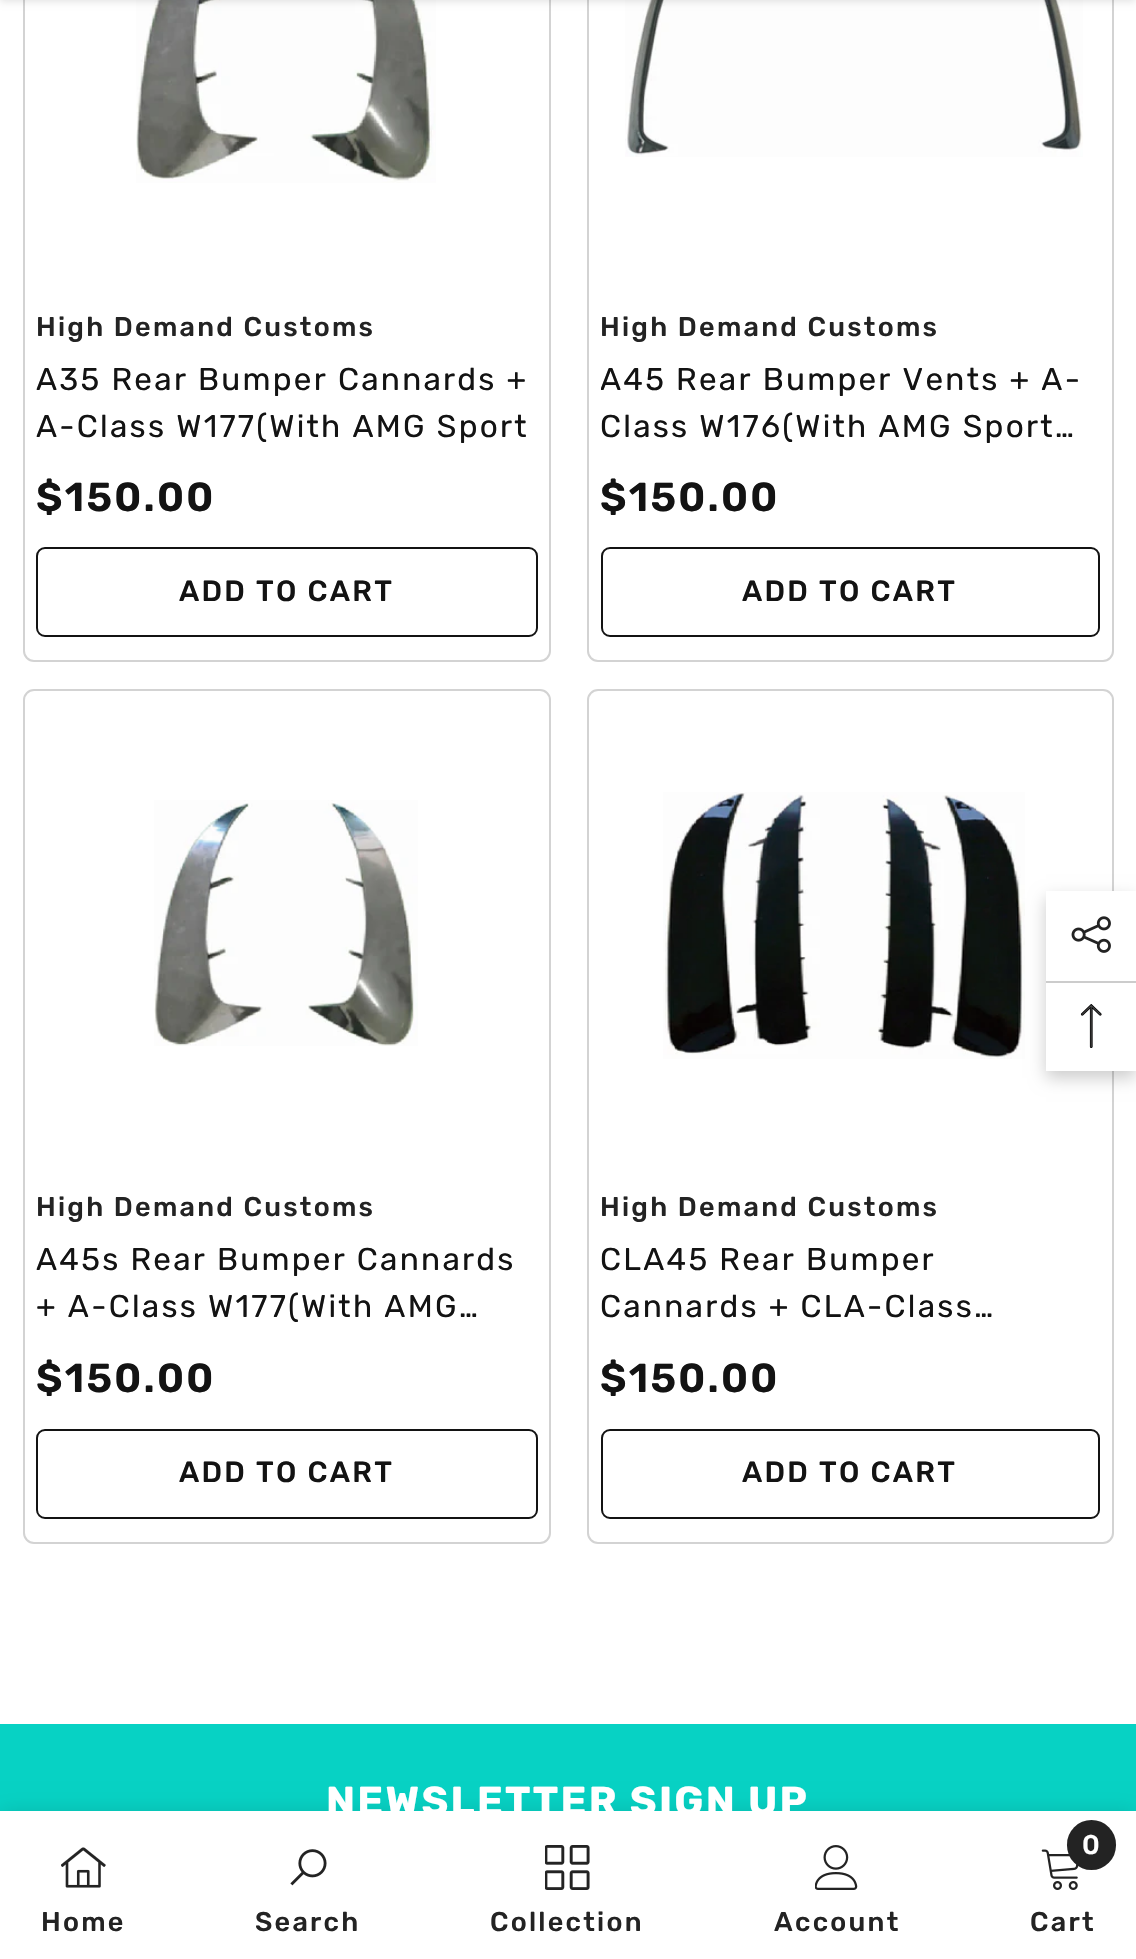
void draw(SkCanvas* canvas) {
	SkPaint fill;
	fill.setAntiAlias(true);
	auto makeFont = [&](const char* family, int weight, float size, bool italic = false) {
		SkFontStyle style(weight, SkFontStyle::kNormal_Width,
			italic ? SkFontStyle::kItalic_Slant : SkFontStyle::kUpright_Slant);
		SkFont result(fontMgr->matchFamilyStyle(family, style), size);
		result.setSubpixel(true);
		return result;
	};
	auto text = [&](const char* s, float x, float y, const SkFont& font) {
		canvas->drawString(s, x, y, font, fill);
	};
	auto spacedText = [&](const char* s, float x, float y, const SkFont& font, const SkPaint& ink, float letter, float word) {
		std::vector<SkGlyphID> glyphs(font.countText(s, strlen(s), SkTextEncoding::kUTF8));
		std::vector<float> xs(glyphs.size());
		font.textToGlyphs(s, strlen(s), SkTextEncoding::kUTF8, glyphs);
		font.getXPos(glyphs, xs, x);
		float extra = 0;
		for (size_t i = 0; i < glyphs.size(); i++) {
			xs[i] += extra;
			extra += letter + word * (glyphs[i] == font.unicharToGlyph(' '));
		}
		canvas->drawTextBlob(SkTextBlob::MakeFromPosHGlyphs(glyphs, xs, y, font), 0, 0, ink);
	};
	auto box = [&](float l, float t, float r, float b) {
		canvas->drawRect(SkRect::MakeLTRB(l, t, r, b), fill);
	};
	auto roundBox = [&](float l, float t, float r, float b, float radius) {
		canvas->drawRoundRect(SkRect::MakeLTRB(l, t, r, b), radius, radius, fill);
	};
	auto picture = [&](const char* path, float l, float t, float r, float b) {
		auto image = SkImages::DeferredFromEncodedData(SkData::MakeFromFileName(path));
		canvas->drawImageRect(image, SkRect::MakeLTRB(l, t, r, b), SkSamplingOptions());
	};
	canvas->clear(0xFFFFFFFF);
	fill.setStyle(SkPaint::kStroke_Style);
	fill.setStrokeWidth(2);
	fill.setColor(0xFFD3D3D3);
	canvas->drawRoundRect(SkRect::MakeLTRB(24, -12, 550, 661), 10, 10, fill);
	picture("image0.png", 136, 0, 436, 183);
	canvas->drawRoundRect(SkRect::MakeLTRB(588, -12, 1113, 661), 10, 10, fill);
	picture("image1.png", 625, 0, 1083, 157);
	fill.setStyle(SkPaint::kFill_Style);
	fill.setColor(0x1A000000);
	fill.setMaskFilter(SkMaskFilter::MakeBlur(kNormal_SkBlurStyle, 3.5f));
	canvas->drawRect(SkRect::MakeLTRB(0, -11, 1136, 2), fill);
	fill.setMaskFilter(nullptr);
	fill.setStyle(SkPaint::kStroke_Style);
	fill.setColor(0xFF131313);
	canvas->drawRoundRect(SkRect::MakeLTRB(37, 548, 537, 636), 8, 8, fill);
	canvas->drawRoundRect(SkRect::MakeLTRB(602, 548, 1099, 636), 8, 8, fill);
	fill.setColor(0xFFD3D3D3);
	canvas->drawRoundRect(SkRect::MakeLTRB(24, 690, 550, 1543), 10, 10, fill);
	picture("image2.png", 154, 800, 418, 1046);
	fill.setColor(0xFF131313);
	canvas->drawRoundRect(SkRect::MakeLTRB(37, 1430, 537, 1518), 8, 8, fill);
	fill.setColor(0xFFD3D3D3);
	canvas->drawRoundRect(SkRect::MakeLTRB(588, 690, 1113, 1543), 10, 10, fill);
	picture("image3.png", 663, 792, 1025, 1059);
	fill.setColor(0xFF131313);
	canvas->drawRoundRect(SkRect::MakeLTRB(602, 1430, 1099, 1518), 8, 8, fill);
	fill.setStyle(SkPaint::kFill_Style);
	{
		const SkColor colors[] = {0xFF1BBCB1, 0xFF07D2C4};
		const float stops[] = {0.15f, 0.85f};
		const SkPoint ends[] = {{568, 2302}, {568, 1724}};
		fill.setShader(SkGradientShader::MakeLinear(ends, colors, stops, 2, SkTileMode::kClamp));
		fill.setAlpha(255);
	}
	box(0, 1724, 1136, 1811);
	fill.setShader(nullptr);
	fill.setColor(0x1F000000);
	fill.setMaskFilter(SkMaskFilter::MakeBlur(kNormal_SkBlurStyle, 10));
	canvas->drawRect(SkRect::MakeLTRB(0, 1811, 1136, 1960), fill);
	fill.setMaskFilter(nullptr);
	fill.setColor(0xFFFFFFFF);
	box(0, 1811, 1136, 1959);
	picture("image4.png", 61, 1847, 106, 1888);
	picture("image5.png", 290, 1849, 327, 1886);
	picture("image6.png", 545, 1845, 590, 1890);
	picture("image7.png", 815, 1845, 858, 1890);
	picture("image8.png", 1041, 1849, 1079, 1890);
	fill.setColor(0xFF232323);
	roundBox(1067, 1820, 1116, 1870, 24.5f);
	fill.setColor(0x33000000);
	fill.setMaskFilter(SkMaskFilter::MakeBlur(kNormal_SkBlurStyle, 8));
	canvas->drawRect(SkRect::MakeLTRB(1046, 898, 1136, 1078), fill);
	fill.setMaskFilter(nullptr);
	fill.setColor(0xFFFFFFFF);
	box(1046, 891, 1136, 1071);
	picture("image9.png", 1071, 916, 1111, 953);
	fill.setColor(0xFFCCCCCC);
	box(1046, 981, 1136, 983);
	picture("image10.png", 1080, 1004, 1102, 1048);
	auto font1 = makeFont("Rubik", 500, 27);
	fill.setColor(0xFF232323);
	spacedText("High Demand Customs", 36, 336, font1, fill, 2.25f, 0);
	auto font2 = makeFont("Rubik", 400, 31.5f);
	fill.setColor(0xFF131313);
	spacedText("A35 Rear Bumper Cannards +", 36, 390, font2, fill, 2.25f, 0);
	spacedText("A-Class W177(With AMG Sport", 36, 437, font2, fill, 2.25f, 0);
	auto font3 = makeFont("Rubik", 600, 40.5f);
	spacedText("$150.00", 36, 511, font3, fill, 2.25f, 0);
	auto font4 = makeFont("Rubik", 500, 29.25f);
	spacedText("ADD TO CART", 179, 601, font4, fill, 2.25f, 0);
	fill.setColor(0xFF232323);
	spacedText("High Demand Customs", 600, 336, font1, fill, 2.25f, 0);
	canvas->save();
	canvas->clipRect(SkRect::MakeLTRB(601, 356, 1100, 450));
	fill.setColor(0xFF131313);
	spacedText("A45 Rear Bumper Vents + A-", 600, 390, font2, fill, 2.25f, 0);
	canvas->restore();
	spacedText("Class W176(With AMG Sport…", 600, 437, font2, fill, 2.25f, 0);
	spacedText("$150.00", 600, 511, font3, fill, 2.25f, 0);
	spacedText("ADD TO CART", 742, 601, font4, fill, 2.25f, 0);
	fill.setColor(0xFF232323);
	spacedText("High Demand Customs", 36, 1216, font1, fill, 2.25f, 0);
	fill.setColor(0xFF131313);
	spacedText("A45s Rear Bumper Cannards", 36, 1270, font2, fill, 2.25f, 0);
	spacedText("+ A-Class W177(With AMG…", 36, 1317, font2, fill, 2.25f, 0);
	spacedText("$150.00", 36, 1392, font3, fill, 2.25f, 0);
	spacedText("ADD TO CART", 179, 1482, font4, fill, 2.25f, 0);
	fill.setColor(0xFF232323);
	spacedText("High Demand Customs", 600, 1216, font1, fill, 2.25f, 0);
	fill.setColor(0xFF131313);
	spacedText("CLA45 Rear Bumper", 600, 1270, font2, fill, 2.25f, 0);
	spacedText("Cannards + CLA-Class…", 600, 1317, font2, fill, 2.25f, 0);
	spacedText("$150.00", 600, 1392, font3, fill, 2.25f, 0);
	spacedText("ADD TO CART", 742, 1482, font4, fill, 2.25f, 0);
	auto font5 = makeFont("Rubik", 700, 40.5f);
	fill.setColor(0xFFFFFFFF);
	spacedText("NEWSLETTER SIGN UP", 326, 1815, font5, fill, 2.25f, 0);
	fill.setColor(0xFF232323);
	spacedText("Home", 41, 1931, font1, fill, 2.25f, 0);
	spacedText("Search", 255, 1931, font1, fill, 2.25f, 0);
	spacedText("Collection", 490, 1931, font1, fill, 2.25f, 0);
	spacedText("Account", 774, 1931, font1, fill, 2.25f, 0);
	fill.setColor(0xFFFFFFFF);
	text("0", 1082, 1854, font1);
	fill.setColor(0xFF232323);
	spacedText("Cart", 1030, 1931, font1, fill, 2.25f, 0);
}
